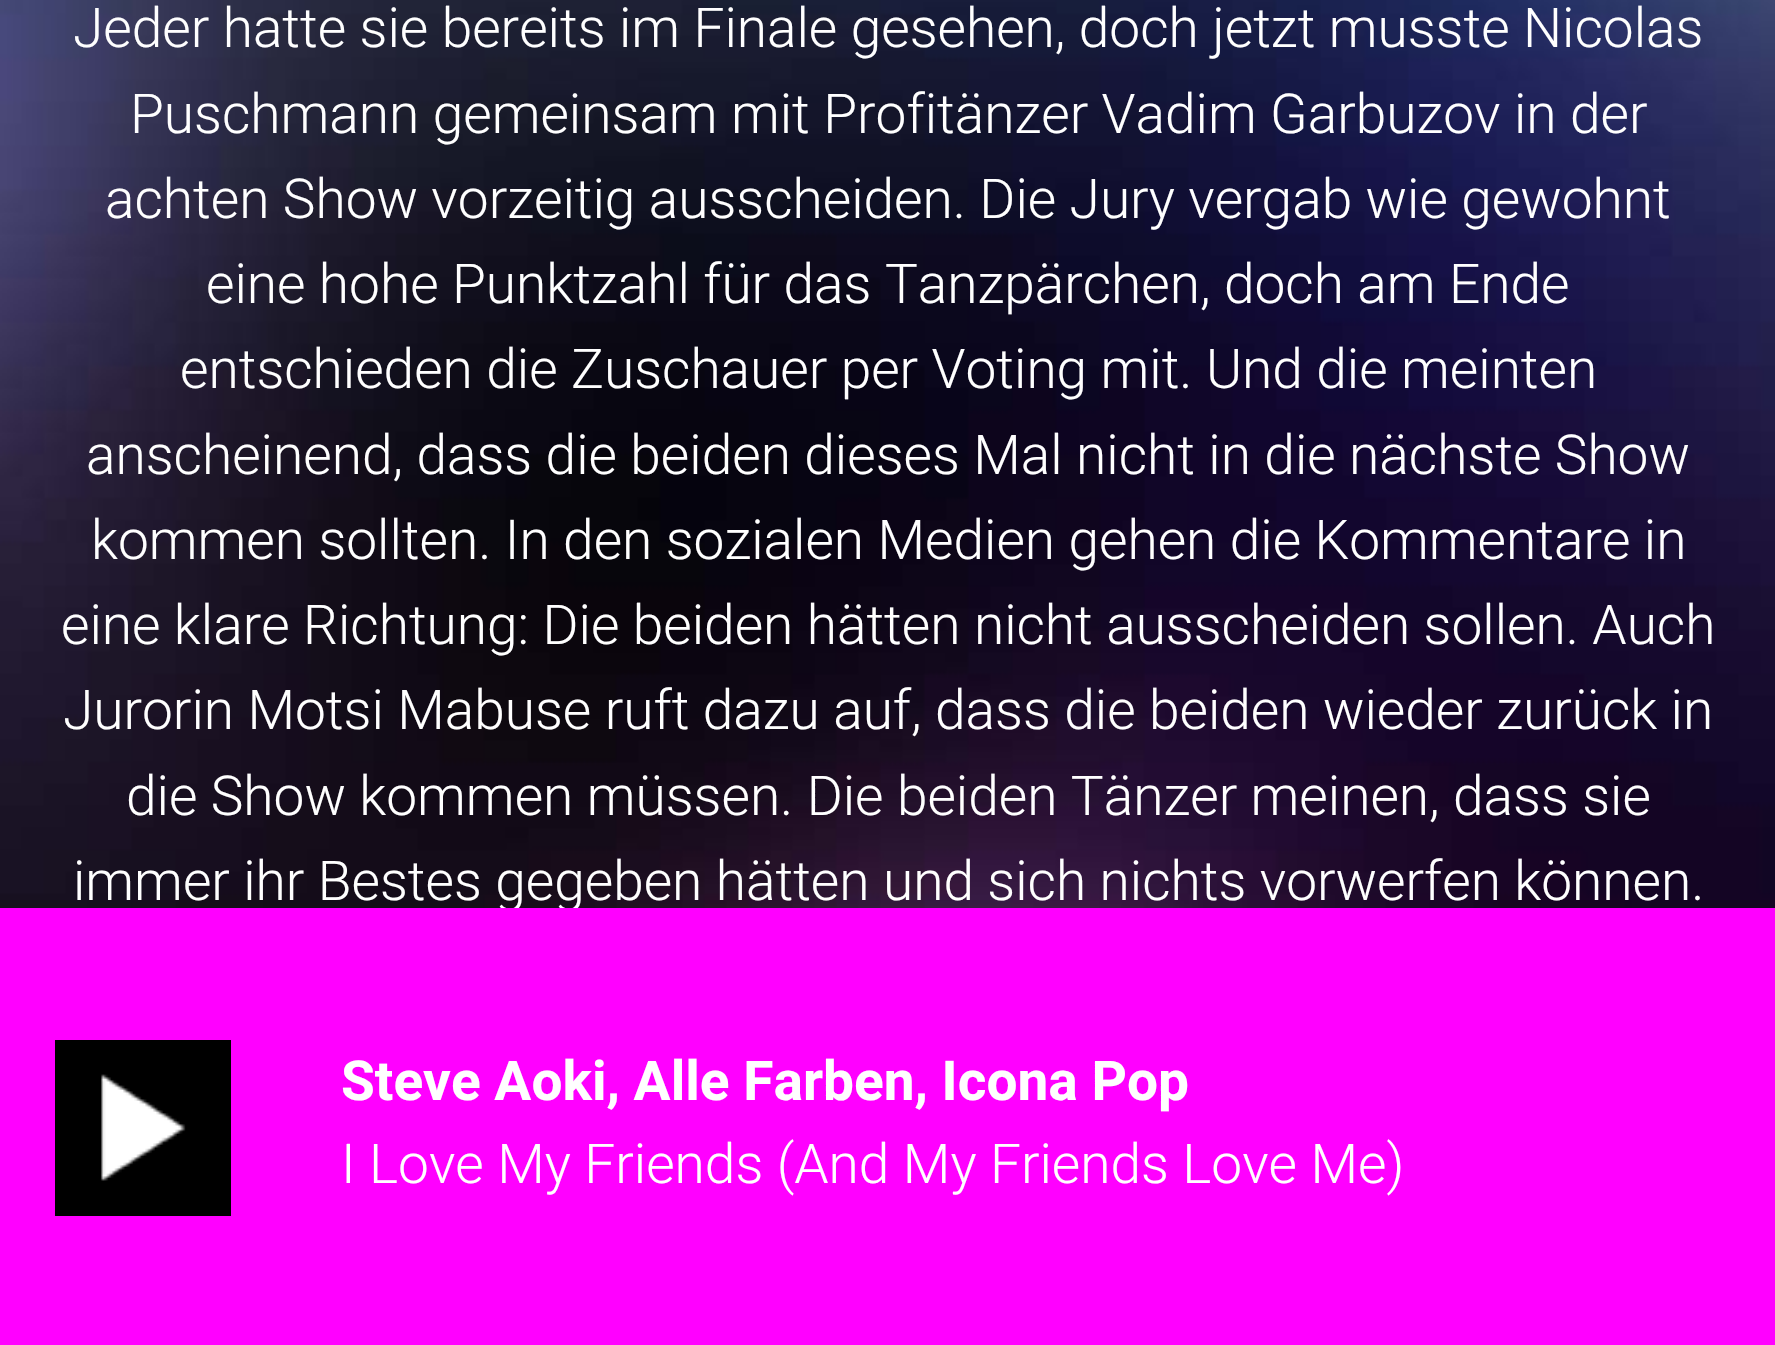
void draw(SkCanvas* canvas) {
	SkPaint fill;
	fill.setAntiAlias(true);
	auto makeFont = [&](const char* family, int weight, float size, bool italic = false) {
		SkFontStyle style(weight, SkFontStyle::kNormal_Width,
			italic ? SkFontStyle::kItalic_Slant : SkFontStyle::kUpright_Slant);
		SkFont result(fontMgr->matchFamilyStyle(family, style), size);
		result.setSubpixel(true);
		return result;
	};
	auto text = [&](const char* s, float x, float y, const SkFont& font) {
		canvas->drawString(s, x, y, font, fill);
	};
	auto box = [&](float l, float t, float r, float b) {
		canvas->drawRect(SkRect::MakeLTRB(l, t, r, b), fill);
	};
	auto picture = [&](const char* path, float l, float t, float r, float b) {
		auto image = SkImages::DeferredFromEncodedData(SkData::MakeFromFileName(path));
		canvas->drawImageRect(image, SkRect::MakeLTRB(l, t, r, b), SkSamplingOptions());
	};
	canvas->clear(0xFFFFFFFF);
	picture("image0.png", 0, 0, 1775, 908);
	auto font1 = makeFont("Roboto", 300, 55);
	fill.setColor(0xFFFFFFFF);
	text("Jeder hatte sie bereits im Finale gesehen, doch jetzt musste Nicolas", 73, 47, font1);
	text("Puschmann gemeinsam mit Profitänzer Vadim Garbuzov in der", 130, 133, font1);
	text("achten Show vorzeitig ausscheiden. Die Jury vergab wie gewohnt", 105, 218, font1);
	text("eine hohe Punktzahl für das Tanzpärchen, doch am Ende", 206, 303, font1);
	text("entschieden die Zuschauer per Voting mit. Und die meinten", 180, 388, font1);
	text("anscheinend, dass die beiden dieses Mal nicht in die nächste Show", 86, 474, font1);
	text("kommen sollten. In den sozialen Medien gehen die Kommentare in", 91, 559, font1);
	text("eine klare Richtung: Die beiden hätten nicht ausscheiden sollen. Auch", 61, 644, font1);
	text("Jurorin Motsi Mabuse ruft dazu auf, dass die beiden wieder zurück in", 63, 729, font1);
	text("die Show kommen müssen. Die beiden Tänzer meinen, dass sie", 126, 815, font1);
	text("immer ihr Bestes gegeben hätten und sich nichts vorwerfen können.", 73, 900, font1);
	fill.setColor(0xFFFF00FF);
	box(0, 908, 1775, 1345);
	fill.setColor(0xFF000000);
	box(55, 1040, 231, 1216);
	picture("image1.png", 101, 1074, 186, 1181);
	auto font2 = makeFont("Roboto", 700, 55);
	fill.setColor(0xFFFFFFFF);
	text("Steve Aoki, Alle Farben, Icona Pop", 341, 1100, font2);
	text("I Love My Friends (And My Friends Love Me)", 341, 1183, font1);
}
